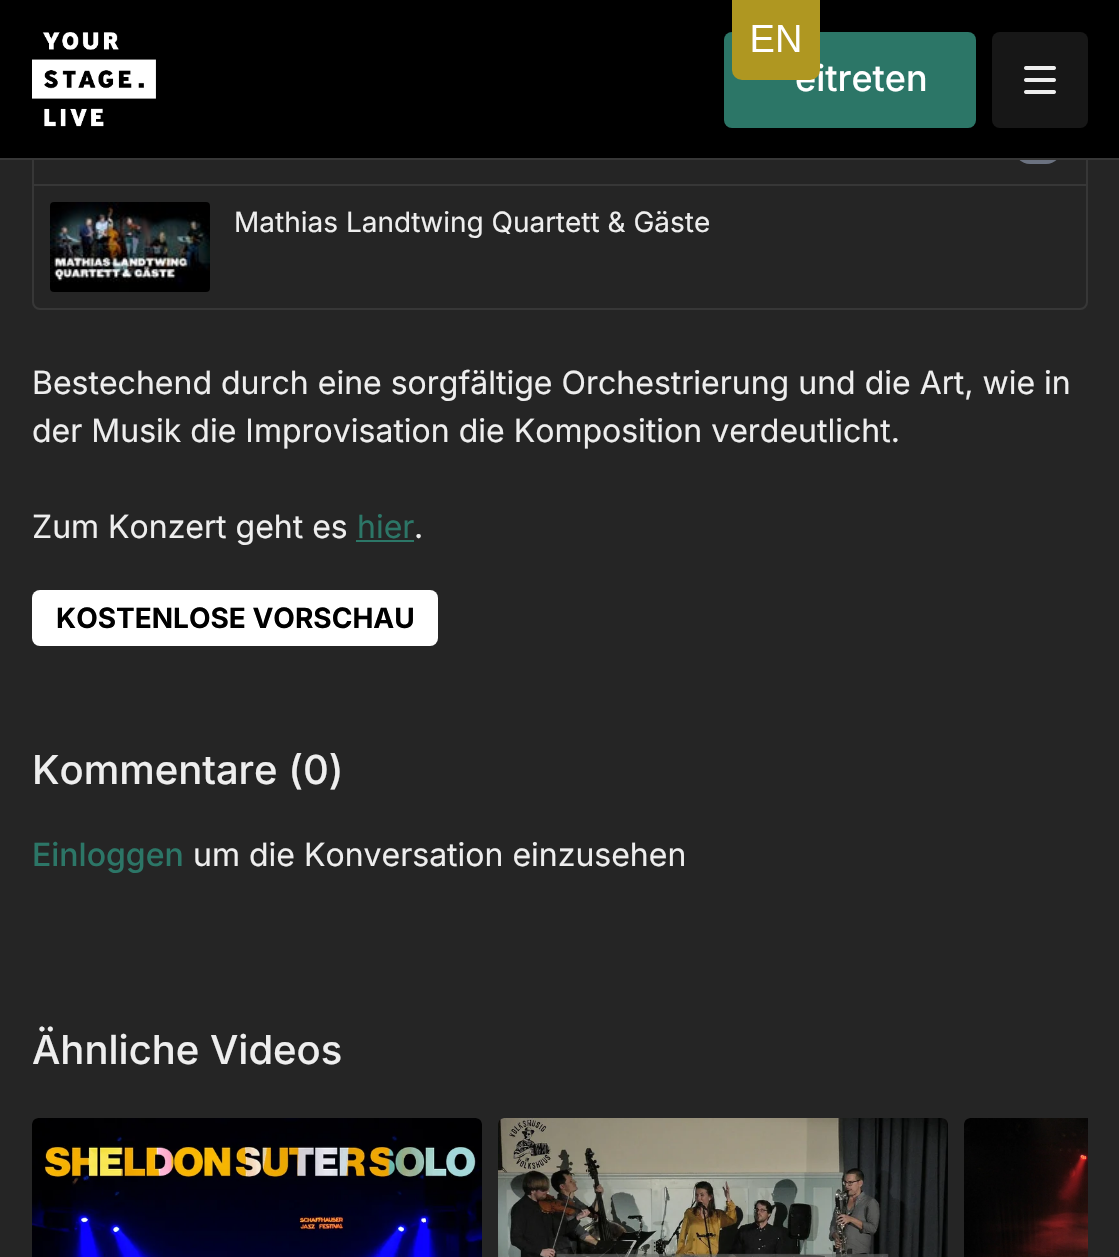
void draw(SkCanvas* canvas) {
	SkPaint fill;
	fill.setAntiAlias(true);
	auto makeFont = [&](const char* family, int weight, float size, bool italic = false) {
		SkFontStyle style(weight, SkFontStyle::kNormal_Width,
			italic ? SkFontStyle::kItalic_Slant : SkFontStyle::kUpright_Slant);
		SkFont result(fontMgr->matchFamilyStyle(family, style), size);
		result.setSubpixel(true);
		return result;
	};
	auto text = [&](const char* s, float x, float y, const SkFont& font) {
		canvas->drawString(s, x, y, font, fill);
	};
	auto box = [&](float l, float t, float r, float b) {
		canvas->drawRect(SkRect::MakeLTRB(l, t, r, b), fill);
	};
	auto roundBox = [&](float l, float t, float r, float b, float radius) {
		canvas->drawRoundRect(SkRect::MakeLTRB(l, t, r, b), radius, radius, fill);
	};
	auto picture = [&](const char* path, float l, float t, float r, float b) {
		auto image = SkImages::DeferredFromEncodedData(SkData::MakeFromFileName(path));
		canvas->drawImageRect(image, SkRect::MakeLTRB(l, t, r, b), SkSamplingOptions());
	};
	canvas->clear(0xFF252525);
	fill.setStyle(SkPaint::kStroke_Style);
	fill.setStrokeWidth(2);
	fill.setColor(0xFF373737);
	canvas->drawRoundRect(SkRect::MakeLTRB(33, 103, 1087, 309), 7, 7, fill);
	fill.setStyle(SkPaint::kFill_Style);
	fill.setColor(0xFF6B7280);
	roundBox(1014, 132, 1062, 164, 16);
	fill.setColor(0xFF000000);
	box(0, 0, 1119, 158);
	fill.setColor(0xFF373737);
	box(0, 158, 1119, 160);
	picture("image1.png", 32, 32, 156, 127);
	fill.setColor(0xFF2C7667);
	roundBox(724, 32, 976, 128, 8);
	fill.setColor(0xFF171717);
	roundBox(992, 32, 1088, 128, 8);
	picture("image2.png", 1024, 66, 1056, 94);
	fill.setColor(0xFF373737);
	box(34, 184, 1086, 186);
	picture("image3.png", 50, 202, 210, 292);
	fill.setColor(0xFF2C7667);
	box(356, 540, 414, 542);
	fill.setColor(0xFFFFFFFF);
	roundBox(32, 590, 438, 646, 8);
	picture("image4.png", 32, 1118, 482, 1257);
	picture("image5.png", 498, 1118, 948, 1257);
	picture("image6.png", 964, 1118, 1088, 1257);
	auto font1 = makeFont("Inter", 500, 36);
	text("eitreten", 795, 91, font1);
	picture("image0.png", 732, 0, 820, 80);
	auto font2 = makeFont("Inter", 400, 28);
	fill.setColor(0xFFEEEEEE);
	text("Mathias Landtwing Quartett & Gäste", 234, 232, font2);
	auto font3 = makeFont("Inter", 400, 32);
	text("Bestechend durch eine sorgfältige Orchestrierung und die Art, wie in", 32, 394, font3);
	text("der Musik die Improvisation die Komposition verdeutlicht.", 32, 442, font3);
	text("Zum Konzert geht es", 32, 538, font3);
	fill.setColor(0xFF2C7667);
	text("hier", 357, 538, font3);
	fill.setColor(0xFFEEEEEE);
	text(".", 414, 538, font3);
	auto font4 = makeFont("Inter", 700, 28);
	fill.setColor(0xFF000000);
	text("KOSTENLOSE VORSCHAU", 56, 628, font4);
	auto font5 = makeFont("Inter", 500, 40);
	fill.setColor(0xFFEEEEEE);
	text("Kommentare (0)", 32, 784, font5);
	auto font6 = makeFont("Inter", 500, 32);
	fill.setColor(0xFF2C7667);
	text("Einloggen", 32, 866, font6);
	fill.setColor(0xFFEEEEEE);
	text("um die Konversation einzusehen", 193, 866, font3);
	text("Ähnliche Videos", 32, 1064, font5);
}
